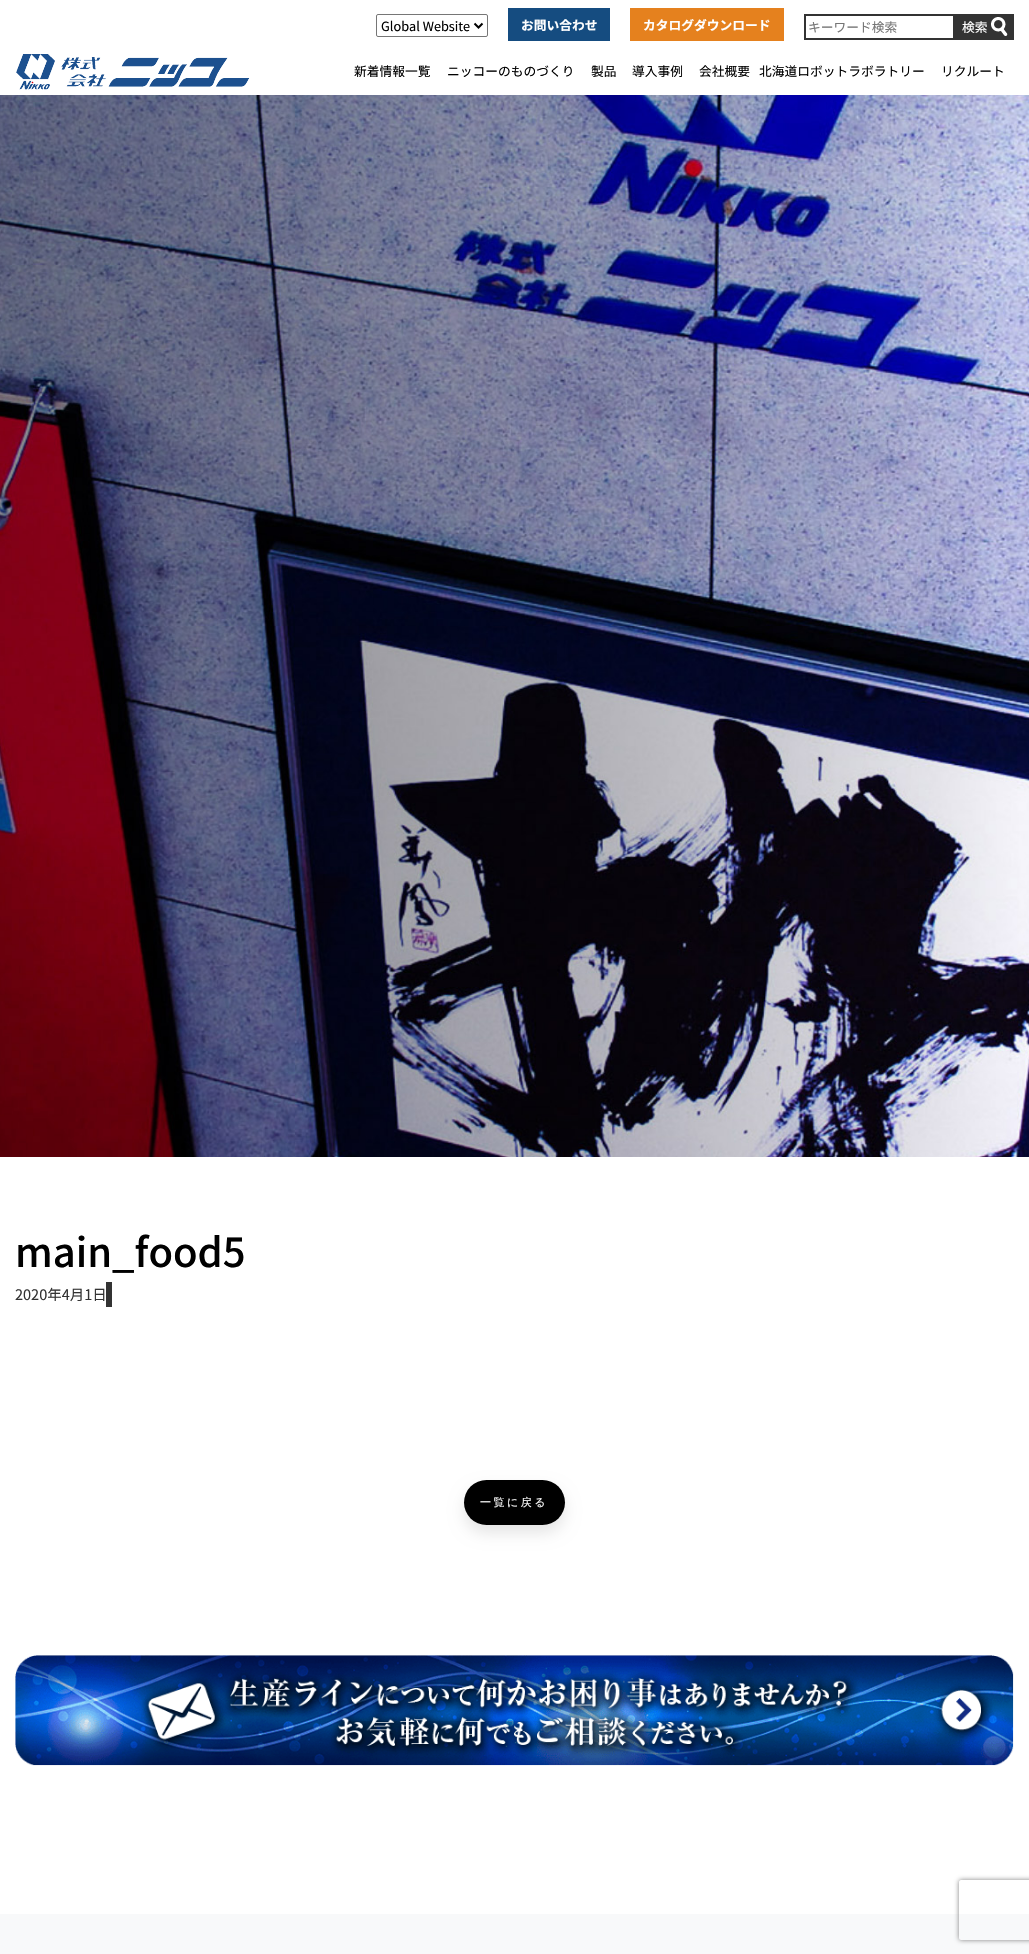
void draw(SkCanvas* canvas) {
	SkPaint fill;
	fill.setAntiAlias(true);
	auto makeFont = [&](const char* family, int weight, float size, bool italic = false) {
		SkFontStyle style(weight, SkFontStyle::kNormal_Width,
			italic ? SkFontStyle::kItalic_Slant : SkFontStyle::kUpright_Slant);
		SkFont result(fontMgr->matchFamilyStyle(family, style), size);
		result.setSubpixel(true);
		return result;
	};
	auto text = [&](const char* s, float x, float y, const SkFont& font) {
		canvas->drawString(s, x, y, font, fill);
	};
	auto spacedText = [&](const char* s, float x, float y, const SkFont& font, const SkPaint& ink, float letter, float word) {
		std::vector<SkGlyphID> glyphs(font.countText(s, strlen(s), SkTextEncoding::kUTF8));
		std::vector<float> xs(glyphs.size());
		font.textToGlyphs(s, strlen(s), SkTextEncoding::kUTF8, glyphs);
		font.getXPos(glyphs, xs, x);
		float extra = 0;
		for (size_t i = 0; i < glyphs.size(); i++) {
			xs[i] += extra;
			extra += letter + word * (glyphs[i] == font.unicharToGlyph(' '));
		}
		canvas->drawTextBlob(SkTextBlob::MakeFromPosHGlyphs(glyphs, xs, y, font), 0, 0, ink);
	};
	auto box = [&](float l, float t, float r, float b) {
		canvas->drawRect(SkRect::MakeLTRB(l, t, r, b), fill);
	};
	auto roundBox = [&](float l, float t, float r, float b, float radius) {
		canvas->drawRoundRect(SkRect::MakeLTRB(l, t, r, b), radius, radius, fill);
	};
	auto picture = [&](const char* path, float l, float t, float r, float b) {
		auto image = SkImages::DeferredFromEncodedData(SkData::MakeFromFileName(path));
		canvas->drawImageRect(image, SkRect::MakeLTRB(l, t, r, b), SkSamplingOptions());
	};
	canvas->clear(0xFFFFFFFF);
	fill.setStyle(SkPaint::kStroke_Style);
	fill.setStrokeWidth(1);
	fill.setColor(0xFF767676);
	canvas->drawRoundRect(SkRect::MakeLTRB(376.5f, 14.5f, 487.5f, 36.5f), 1.5f, 1.5f, fill);
	fill.setStrokeWidth(2);
	fill.setColor(0xFF000000);
	canvas->drawPath(SkPathBuilder().moveTo(474.5f, 23.5f).lineTo(478.5f, 27.5f).lineTo(482.5f, 23.5f).detach(), fill);
	fill.setStyle(SkPaint::kFill_Style);
	fill.setColor(0xFF154C80);
	box(508, 8, 610, 41);
	fill.setColor(0xFFE5811E);
	box(630, 8, 784, 41);
	fill.setStyle(SkPaint::kStroke_Style);
	fill.setColor(0xFF333333);
	canvas->drawRect(SkRect::MakeLTRB(805, 15, 954, 39), fill);
	fill.setStyle(SkPaint::kFill_Style);
	box(955, 14, 1014, 40);
	picture("image0.png", 991, 17, 1008, 36);
	picture("image1.png", 16, 54, 250, 90);
	picture("image2.png", 0, 95, 1029, 1157);
	box(106, 1282, 112, 1307);
	fill.setColor(0x1A000000);
	fill.setMaskFilter(SkMaskFilter::MakeBlur(kNormal_SkBlurStyle, 7.5f));
	canvas->drawRoundRect(SkRect::MakeLTRB(464, 1488, 565, 1533), 22.5f, 22.5f, fill);
	fill.setMaskFilter(nullptr);
	fill.setColor(0xFF000000);
	roundBox(464, 1480, 565, 1525, 22.5f);
	picture("image3.png", 15, 1655, 1014, 1766);
	fill.setColor(0xFFF8F9FA);
	box(0, 1914, 1029, 1954);
	canvas->save();
	canvas->clipPath(SkPathBuilder(SkPathFillType::kEvenOdd).moveTo(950, 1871).lineTo(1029, 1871).lineTo(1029, 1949).lineTo(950, 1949).close().moveTo(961, 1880).lineTo(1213, 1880).cubicTo(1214, 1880, 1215, 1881, 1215, 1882).lineTo(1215, 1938).cubicTo(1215, 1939, 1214, 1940, 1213, 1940).lineTo(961, 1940).cubicTo(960, 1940, 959, 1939, 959, 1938).lineTo(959, 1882).cubicTo(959, 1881, 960, 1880, 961, 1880).close().detach(), true);
	fill.setColor(0xFF808080);
	fill.setMaskFilter(SkMaskFilter::MakeBlur(kNormal_SkBlurStyle, 2.5f));
	canvas->drawRoundRect(SkRect::MakeLTRB(959, 1880, 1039, 1940), 2, 2, fill);
	fill.setMaskFilter(nullptr);
	canvas->restore();
	auto font1 = makeFont("Noto Sans JP", 400, 12.75f);
	fill.setColor(0xFF000000);
	text("Global Website", 381, 31, font1);
	auto font2 = makeFont("Noto Sans JP", 700, 12.75f);
	fill.setColor(0xFFFFFFFF);
	text("お問い合わせ", 521, 30, font2);
	text("カタログダウンロード", 643, 30, font2);
	fill.setColor(0xFF757575);
	text("キーワード検索", 808, 32, font1);
	fill.setColor(0xFFFFFFFF);
	text("検索", 962, 32, font1);
	fill.setColor(0xFF000000);
	text("新着情報一覧", 354, 76, font1);
	text("ニッコーのものづくり", 447, 76, font1);
	text("製品", 591, 76, font1);
	text("導入事例", 632, 76, font1);
	text("会社概要", 699, 76, font1);
	text("北海道ロボットラボラトリー", 759, 76, font1);
	text("リクルート", 941, 76, font1);
	auto font3 = makeFont("Noto Sans JP", 500, 40);
	text("main_food5", 15, 1267, font3);
	auto font4 = makeFont("Noto Sans JP", 400, 14.5f);
	fill.setColor(0xFF333333);
	text("2020年4月1日", 15, 1300, font4);
	auto font5 = makeFont("WenQuanYi Zen Hei", 500, 11);
	fill.setColor(0xFFFFFFFF);
	spacedText("一覧に戻る", 480, 1506, font5, fill, 2.5f, 0);
}
